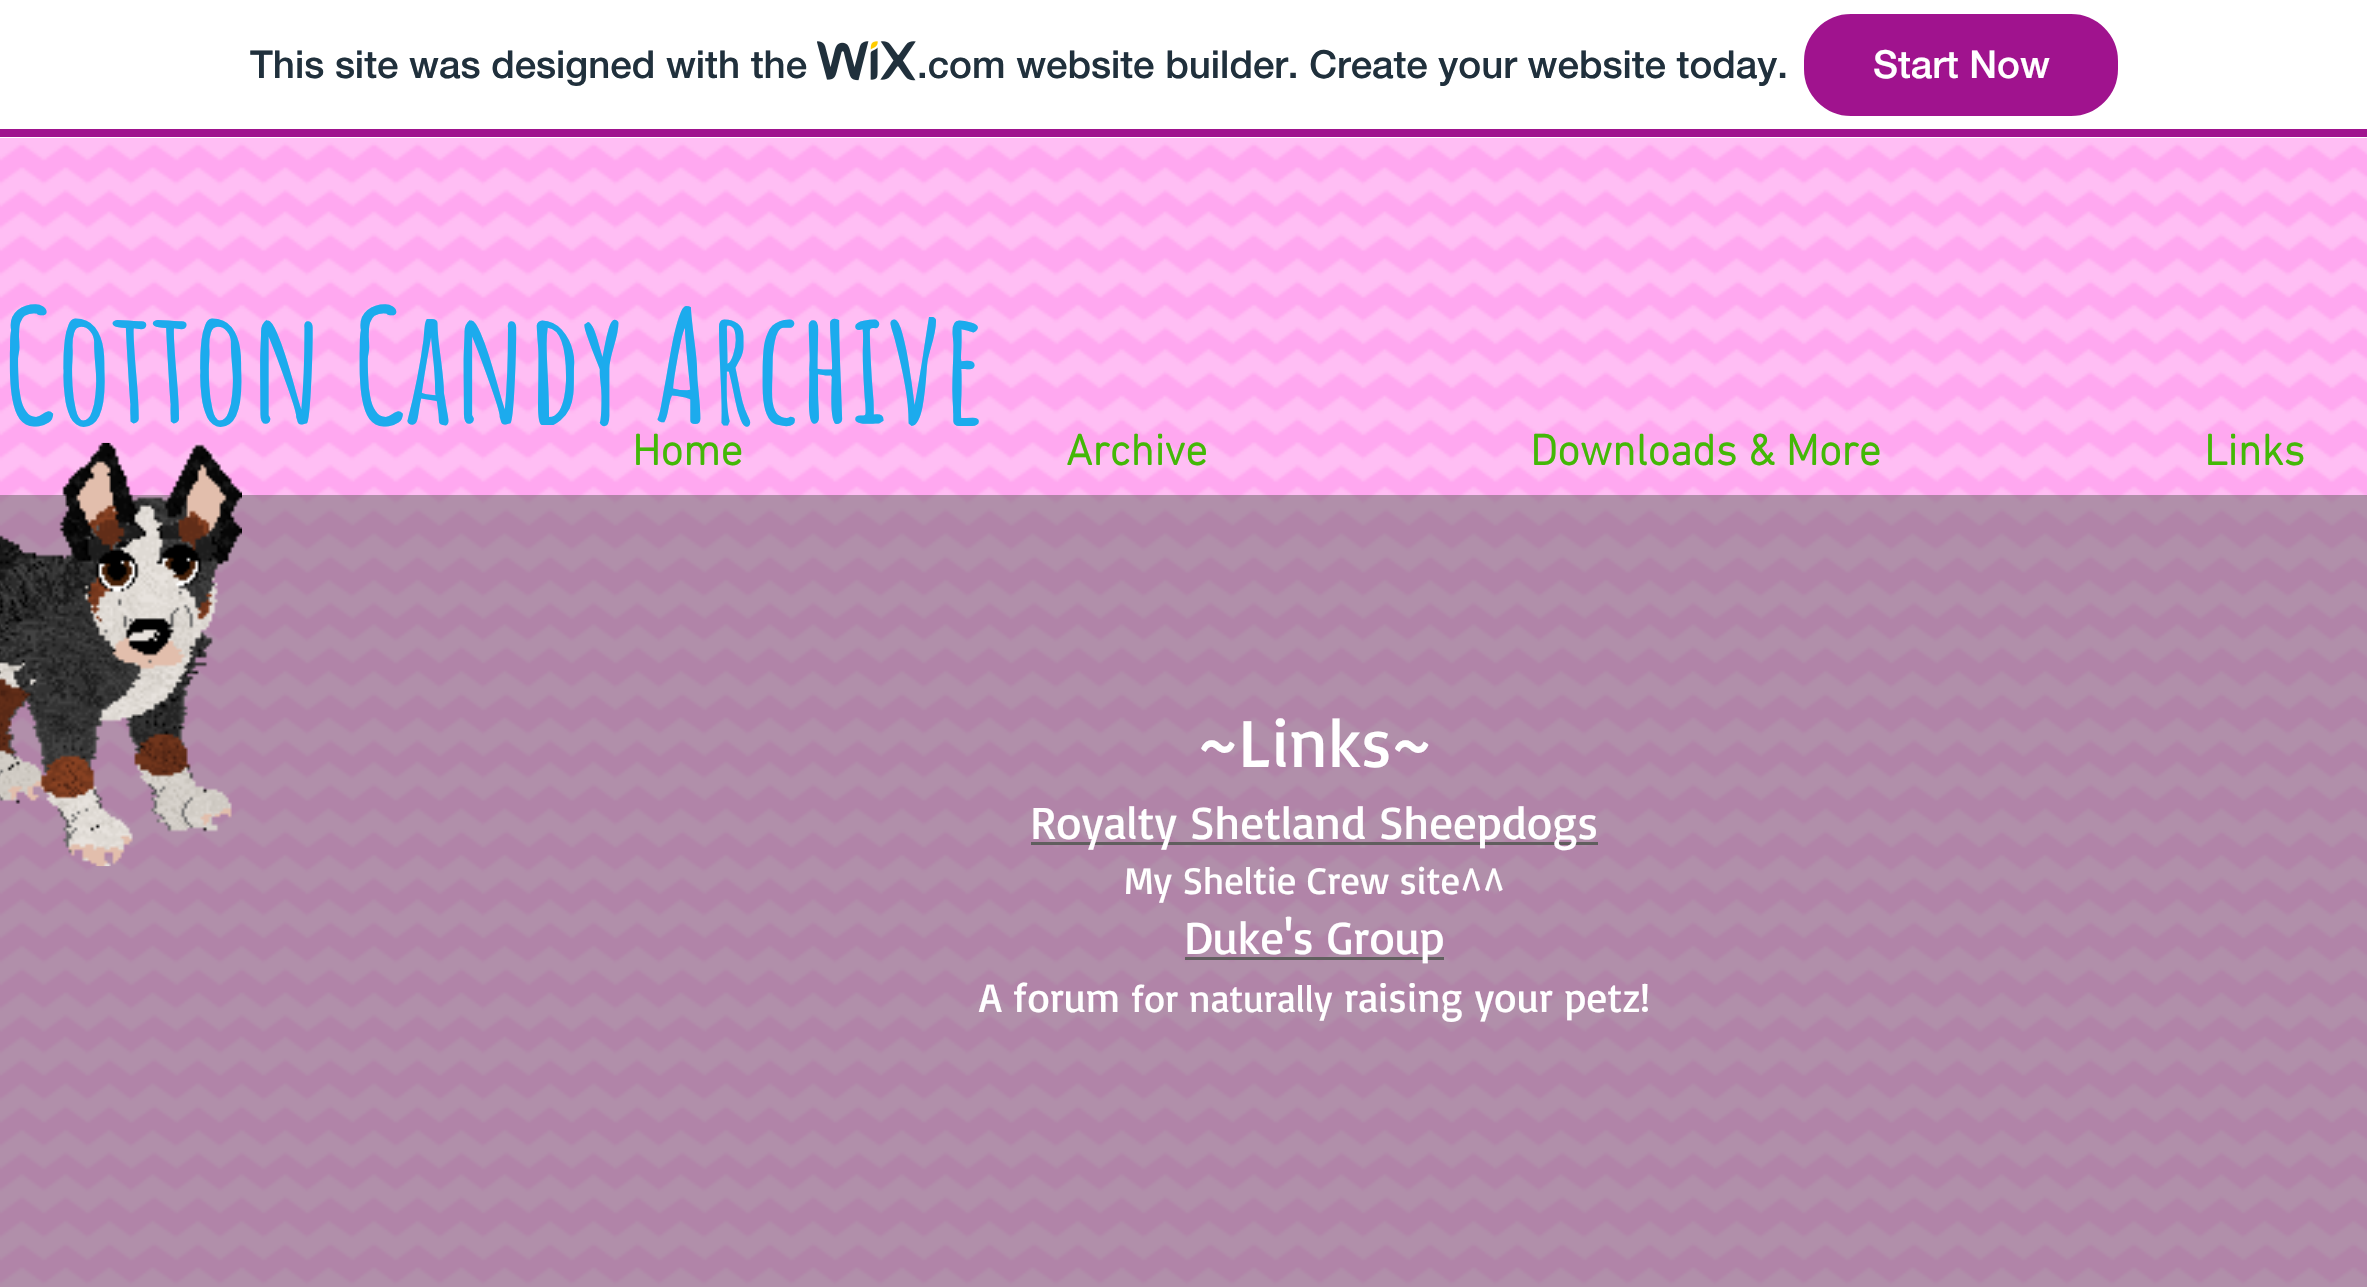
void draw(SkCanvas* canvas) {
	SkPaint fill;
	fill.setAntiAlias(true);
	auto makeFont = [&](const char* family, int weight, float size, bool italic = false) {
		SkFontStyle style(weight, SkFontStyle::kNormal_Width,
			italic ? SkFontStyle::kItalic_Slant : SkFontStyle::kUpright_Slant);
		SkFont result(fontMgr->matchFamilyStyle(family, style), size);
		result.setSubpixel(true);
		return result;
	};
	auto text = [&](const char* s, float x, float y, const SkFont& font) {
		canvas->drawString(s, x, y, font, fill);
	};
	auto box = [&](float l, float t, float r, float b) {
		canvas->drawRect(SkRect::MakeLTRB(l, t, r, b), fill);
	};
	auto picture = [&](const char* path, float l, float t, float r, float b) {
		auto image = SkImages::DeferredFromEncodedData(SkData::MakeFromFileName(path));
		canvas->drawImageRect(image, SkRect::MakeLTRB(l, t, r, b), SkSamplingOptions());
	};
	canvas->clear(0xFFFFFFFF);
	fill.setColor(0xFFA0138E);
	box(0, 129, 2367, 137);
	picture("image0.png", 817, 41, 916, 81);
	canvas->drawRoundRect(SkRect::MakeLTRB(1805.5f, 15.5f, 2116.5f, 114.5f), 45.5f, 45.5f, fill);
	fill.setStyle(SkPaint::kStroke_Style);
	fill.setStrokeWidth(3);
	canvas->drawRoundRect(SkRect::MakeLTRB(1805.5f, 15.5f, 2116.5f, 114.5f), 45.5f, 45.5f, fill);
	fill.setStyle(SkPaint::kFill_Style);
	fill.setColor(0xFFFFA8F0);
	box(0, 138, 2367, 1287);
	picture("image1.png", 0, 138, 2367, 1287);
	fill.setColor(0x7D605E5E);
	box(0, 495, 2367, 1287);
	picture("image2.png", 0, 442, 242, 867);
	fill.setColor(0xFF605E5E);
	box(1031, 842, 1598, 845);
	box(1185, 957, 1444, 960);
	auto font1 = makeFont("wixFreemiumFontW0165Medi", 500, 38.5f);
	fill.setColor(0xFF20303C);
	text("This site was designed with the", 250, 78, font1);
	text(".com website builder. Create your website today.", 917, 78, font1);
	fill.setColor(0xFFFFFFFF);
	text("Start Now", 1873, 78, font1);
	auto font2 = makeFont("Amatic SC", 700, 156.75f);
	fill.setColor(0xFF1CABED);
	text("Cotton Candy Archive", 3, 424, font2);
	auto font3 = makeFont("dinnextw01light", 700, 44);
	fill.setColor(0xFF43B807);
	text("Home", 632, 465, font3);
	text("Archive", 1066, 465, font3);
	text("Downloads & More", 1530, 465, font3);
	text("Links", 2204, 465, font3);
	auto font4 = makeFont("Basic", 400, 69);
	fill.setColor(0xFFFFFFFF);
	text("~Links~", 1198, 767, font4);
	auto font5 = makeFont("Basic", 400, 46.75f);
	text("Royalty Shetland Sheepdogs", 1030, 839, font5);
	auto font6 = makeFont("Basic", 400, 38.5f);
	text("My Sheltie Crew site^^", 1124, 894, font6);
	text("Duke's Group", 1184, 954, font5);
	auto font7 = makeFont("Basic", 400, 41.25f);
	text("A forum", 979, 1012, font7);
	text("for naturally", 1131, 1012, font6);
	text("raising your petz!", 1344, 1012, font7);
}
